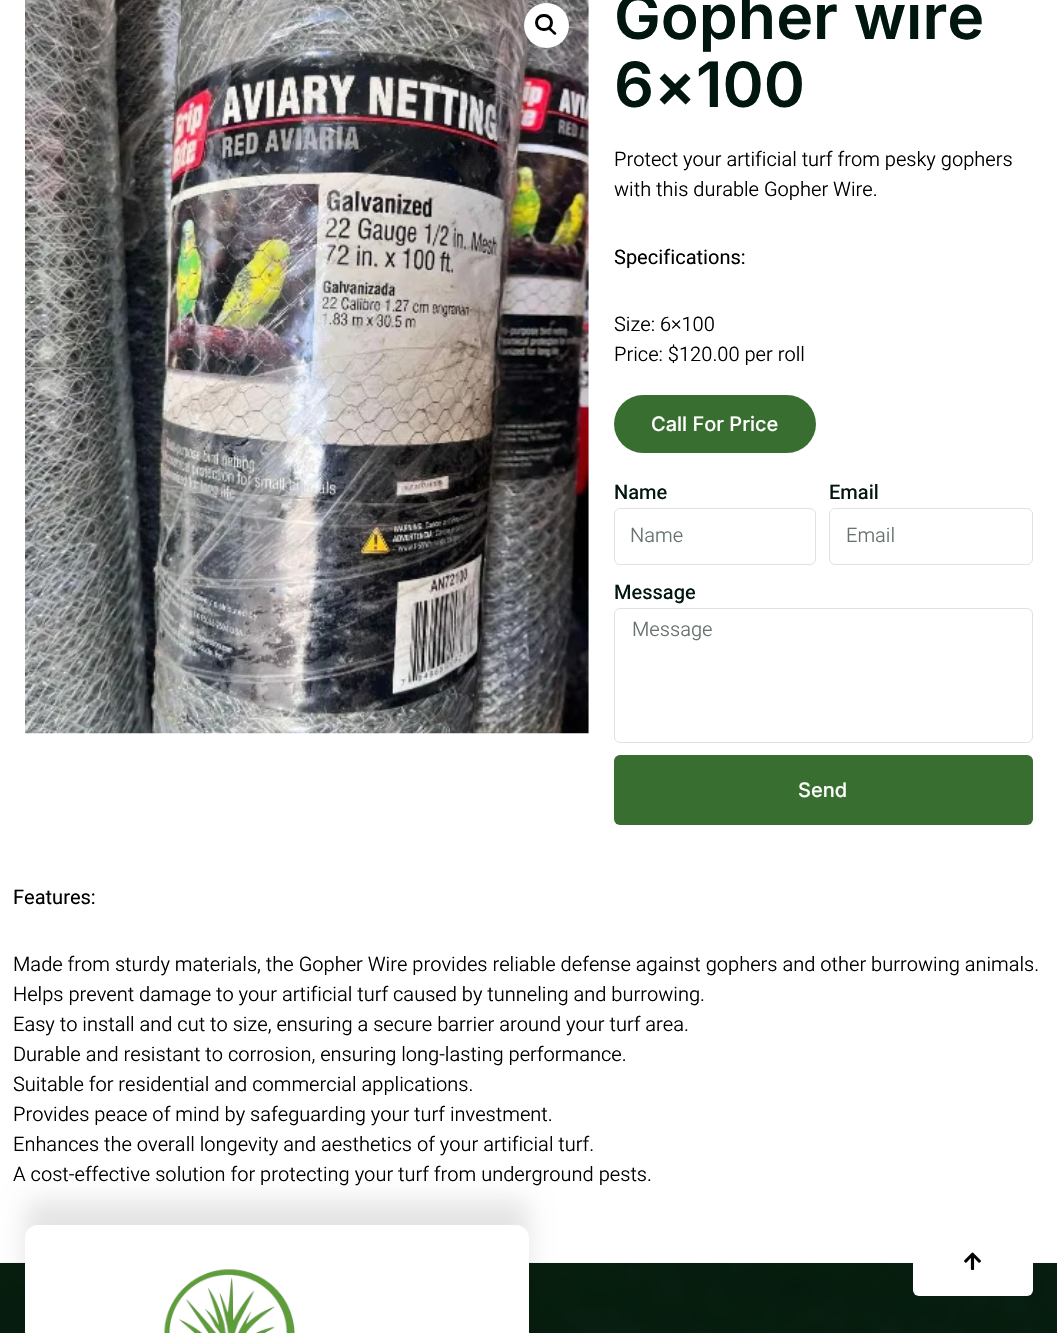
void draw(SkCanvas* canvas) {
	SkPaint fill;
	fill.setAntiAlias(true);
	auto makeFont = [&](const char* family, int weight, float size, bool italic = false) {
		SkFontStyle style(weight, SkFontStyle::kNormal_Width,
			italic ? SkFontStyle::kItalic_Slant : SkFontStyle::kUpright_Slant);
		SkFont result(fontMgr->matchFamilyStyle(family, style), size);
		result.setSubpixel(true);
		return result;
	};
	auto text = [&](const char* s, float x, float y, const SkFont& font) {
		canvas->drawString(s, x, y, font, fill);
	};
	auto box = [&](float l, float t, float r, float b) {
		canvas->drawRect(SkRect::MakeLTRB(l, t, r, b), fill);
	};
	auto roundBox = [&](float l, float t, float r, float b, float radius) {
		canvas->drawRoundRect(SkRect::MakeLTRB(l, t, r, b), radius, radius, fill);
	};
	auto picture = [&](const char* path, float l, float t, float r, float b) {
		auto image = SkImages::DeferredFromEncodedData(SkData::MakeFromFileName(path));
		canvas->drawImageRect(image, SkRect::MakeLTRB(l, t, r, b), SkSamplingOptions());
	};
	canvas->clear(0xFFFFFFFF);
	picture("image0.png", 25, 0, 589, 734);
	fill.setColor(0xFFFFFFFF);
	canvas->drawCircle(546.5f, 25.5f, 22.5f, fill);
	fill.setStyle(SkPaint::kStroke_Style);
	fill.setStrokeWidth(3);
	fill.setColor(0xFF000000);
	canvas->drawRoundRect(SkRect::MakeLTRB(536.5f, 15.5f, 551.5f, 29.5f), 7, 7, fill);
	fill.setStyle(SkPaint::kFill_Style);
	canvas->drawPath(SkPathBuilder().moveTo(549, 27.5f).cubicTo(550, 26, 552.5f, 29.5f, 553, 30).cubicTo(554, 31, 557.5f, 33, 556, 34.5f).cubicTo(554.5f, 36, 552, 32.5f, 551.5f, 32).cubicTo(550.5f, 31, 547.5f, 29, 549, 27.5f).close().detach(), fill);
	fill.setColor(0xFF386E30);
	roundBox(614, 395, 816, 453, 29);
	fill.setStyle(SkPaint::kStroke_Style);
	fill.setStrokeWidth(1);
	fill.setColor(0xFFE1E1E1);
	canvas->drawRoundRect(SkRect::MakeLTRB(614.5f, 508.5f, 815.5f, 564.5f), 5.5f, 5.5f, fill);
	canvas->drawRoundRect(SkRect::MakeLTRB(829.5f, 508.5f, 1032.5f, 564.5f), 5.5f, 5.5f, fill);
	canvas->drawRoundRect(SkRect::MakeLTRB(614.5f, 608.5f, 1032.5f, 742.5f), 5.5f, 5.5f, fill);
	fill.setStyle(SkPaint::kFill_Style);
	fill.setColor(0xFF386E30);
	roundBox(614, 755, 1033, 825, 6);
	fill.setColor(0xFF00160E);
	box(0, 1263, 1057, 1333);
	picture("image2.png", 0, 1262, 1057, 1333);
	fill.setColor(0x1A000000);
	fill.setMaskFilter(SkMaskFilter::MakeBlur(kNormal_SkBlurStyle, 12.5f));
	canvas->drawRoundRect(SkRect::MakeLTRB(25, 1200, 529, 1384), 13, 13, fill);
	fill.setMaskFilter(nullptr);
	fill.setColor(0xFFFFFFFF);
	roundBox(25, 1225, 529, 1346, 13);
	picture("image1.png", 163, 1269, 295, 1333);
	roundBox(913, 1226, 1033, 1296, 6);
	picture("image3.png", 964, 1252, 981, 1270);
	auto font1 = makeFont("Inter", 600, 62.5f);
	fill.setColor(0xFF00160E);
	text("Gopher wire", 614, 39, font1);
	text("6×100", 614, 107, font1);
	auto font2 = makeFont("Heebo", 300, 20);
	fill.setColor(0xFF000000);
	text("Protect your artificial turf from pesky gophers", 614, 166, font2);
	text("with this durable Gopher Wire.", 614, 196, font2);
	auto font3 = makeFont("Heebo", 400, 20);
	text("Specifications:", 614, 264, font3);
	text("Size: 6×100", 614, 331, font2);
	text("Price: $120.00 per roll", 614, 361, font2);
	auto font4 = makeFont("Inter", 500, 20);
	fill.setColor(0xFFFFFFFF);
	text("Call For Price", 651, 431, font4);
	auto font5 = makeFont("Heebo", 500, 20);
	fill.setColor(0xFF00160E);
	text("Name", 614, 499, font5);
	fill.setColor(0xFF66736E);
	text("Name", 630, 542, font2);
	fill.setColor(0xFF00160E);
	text("Email", 829, 499, font5);
	fill.setColor(0xFF66736E);
	text("Email", 846, 542, font2);
	fill.setColor(0xFF00160E);
	text("Message", 614, 599, font5);
	fill.setColor(0xFF66736E);
	text("Message", 632, 636, font2);
	fill.setColor(0xFFFFFFFF);
	text("Send", 798, 797, font4);
	fill.setColor(0xFF000000);
	text("Features:", 13, 904, font3);
	text("Made from sturdy materials, the Gopher Wire provides reliable defense against gophers and other burrowing animals.", 13, 971, font2);
	text("Helps prevent damage to your artificial turf caused by tunneling and burrowing.", 13, 1001, font2);
	text("Easy to install and cut to size, ensuring a secure barrier around your turf area.", 13, 1031, font2);
	text("Durable and resistant to corrosion, ensuring long-lasting performance.", 13, 1061, font2);
	text("Suitable for residential and commercial applications.", 13, 1091, font2);
	text("Provides peace of mind by safeguarding your turf investment.", 13, 1121, font2);
	text("Enhances the overall longevity and aesthetics of your artificial turf.", 13, 1151, font2);
	text("A cost-effective solution for protecting your turf from underground pests.", 13, 1181, font2);
}
